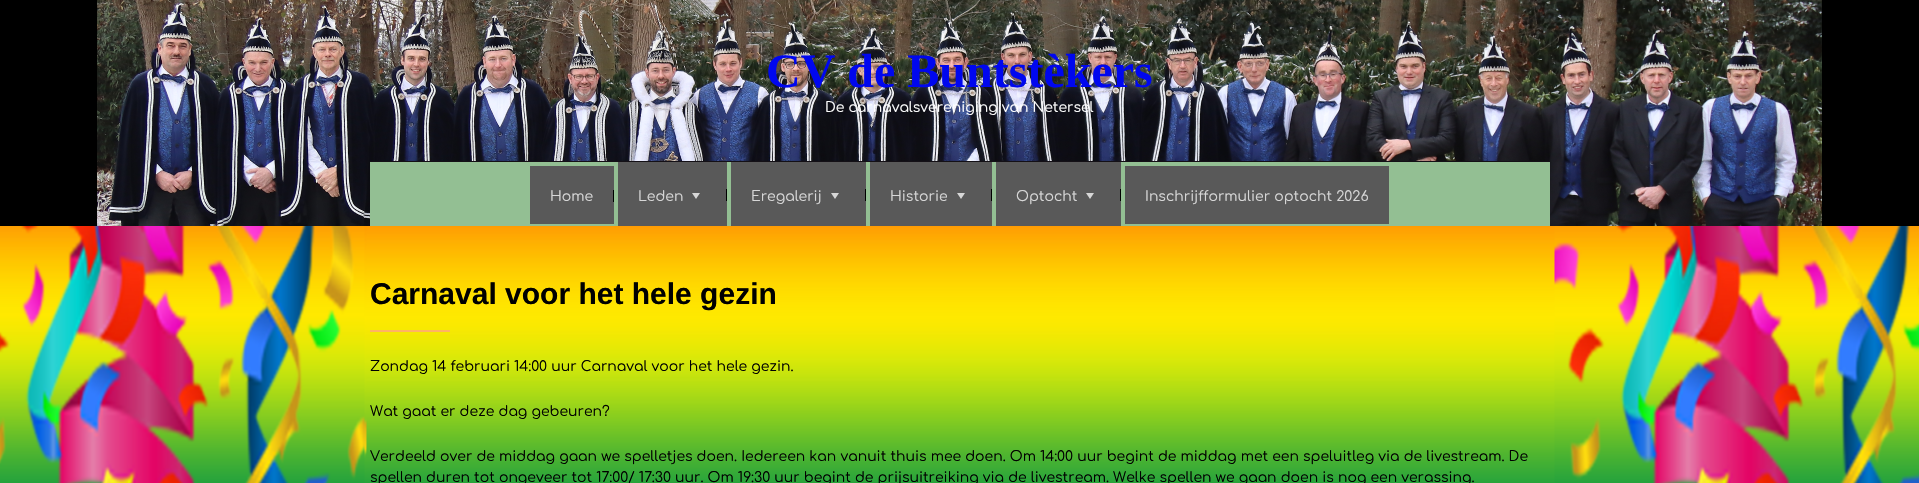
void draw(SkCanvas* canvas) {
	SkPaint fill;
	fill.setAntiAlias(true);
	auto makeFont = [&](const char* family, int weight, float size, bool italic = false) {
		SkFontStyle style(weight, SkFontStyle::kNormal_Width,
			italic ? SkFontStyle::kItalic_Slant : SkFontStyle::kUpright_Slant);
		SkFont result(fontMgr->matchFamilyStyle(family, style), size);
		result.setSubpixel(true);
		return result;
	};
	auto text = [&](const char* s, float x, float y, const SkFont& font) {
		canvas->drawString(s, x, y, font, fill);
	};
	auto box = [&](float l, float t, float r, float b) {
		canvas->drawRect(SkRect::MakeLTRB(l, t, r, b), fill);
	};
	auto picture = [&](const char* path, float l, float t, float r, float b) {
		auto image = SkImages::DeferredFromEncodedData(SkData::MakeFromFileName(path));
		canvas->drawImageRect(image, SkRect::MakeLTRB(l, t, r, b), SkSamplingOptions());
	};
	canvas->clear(0xFFFFFFFF);
	picture("image0.png", 0, 226, 1919, 483);
	fill.setColor(0xFF000000);
	box(0, 0, 1919, 226);
	picture("image1.png", 97, 0, 1822, 226);
	fill.setColor(0xFF93BF93);
	box(370, 162, 1550, 226);
	fill.setColor(0xFF141016);
	box(370, 161, 1550, 162);
	fill.setColor(0xFF595959);
	box(530, 166, 614, 224);
	fill.setColor(0xFF000000);
	box(613, 190, 614, 202);
	fill.setColor(0xFF595959);
	box(618, 162, 727, 226);
	fill.setColor(0xFFD7D7D7);
	canvas->drawPath(SkPathBuilder().moveTo(700, 193).lineTo(696, 199).lineTo(692, 193).close().detach(), fill);
	fill.setColor(0xFF000000);
	box(726, 189, 727, 201);
	fill.setColor(0xFF595959);
	box(731, 162, 866, 226);
	fill.setColor(0xFFD7D7D7);
	canvas->drawPath(SkPathBuilder().moveTo(839, 193).lineTo(835, 199).lineTo(831, 193).close().detach(), fill);
	fill.setColor(0xFF000000);
	box(865, 189, 866, 201);
	fill.setColor(0xFF595959);
	box(870, 162, 992, 226);
	fill.setColor(0xFFD7D7D7);
	canvas->drawPath(SkPathBuilder().moveTo(965, 193).lineTo(961, 199).lineTo(957, 193).close().detach(), fill);
	fill.setColor(0xFF000000);
	box(991, 189, 992, 201);
	fill.setColor(0xFF595959);
	box(996, 162, 1121, 226);
	fill.setColor(0xFFD7D7D7);
	canvas->drawPath(SkPathBuilder().moveTo(1094, 193).lineTo(1090, 199).lineTo(1086, 193).close().detach(), fill);
	fill.setColor(0xFF000000);
	box(1120, 189, 1121, 201);
	fill.setColor(0xFF595959);
	box(1125, 166, 1389, 224);
	fill.setColor(0xFFFFB366);
	box(370, 330, 450, 332);
	auto font1 = makeFont("Liberation Serif", 700, 48);
	fill.setColor(0xFF0007EF);
	text("CV de Buntstèkers", 766, 87, font1);
	auto font2 = makeFont("Comfortaa", 400, 14);
	fill.setColor(0xFFFFFFFF);
	text("De carnavalsvereniging van Netersel", 825, 112, font2);
	fill.setColor(0xFFD7D7D7);
	text("Home", 550, 201, font2);
	text("Leden", 638, 201, font2);
	text("Eregalerij", 751, 201, font2);
	text("Historie", 890, 201, font2);
	text("Optocht", 1016, 201, font2);
	text("Inschrijfformulier optocht 2026", 1145, 201, font2);
	auto font3 = makeFont("Liberation Sans", 700, 30);
	fill.setColor(0xFF000000);
	text("Carnaval voor het hele gezin", 370, 304, font3);
	text("Zondag 14 februari 14:00 uur Carnaval voor het hele gezin.", 370, 371, font2);
	text("Wat gaat er deze dag gebeuren?", 370, 416, font2);
	text("Verdeeld over de middag gaan we spelletjes doen. Iedereen kan vanuit thuis mee doen. Om 14:00 uur begint de middag met een speluitleg via de livestream. De", 370, 461, font2);
	text("spellen duren tot ongeveer tot 17:00/ 17:30 uur. Om 19:30 uur begint de prijsuitreiking via de livestream. Welke spellen we gaan doen is nog een verassing.", 370, 482, font2);
}
